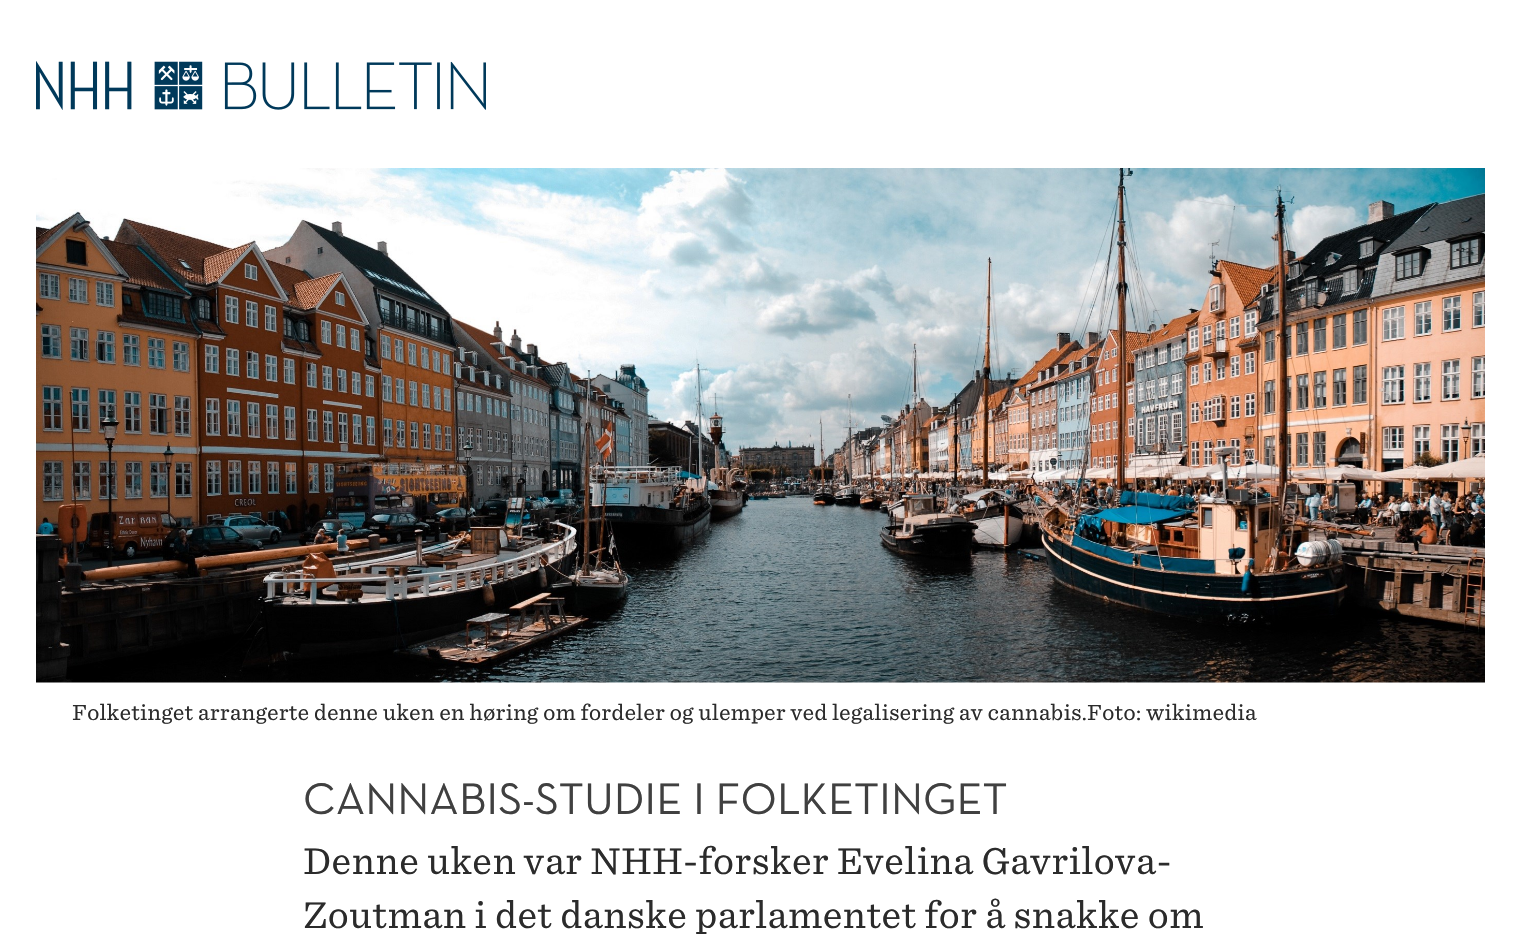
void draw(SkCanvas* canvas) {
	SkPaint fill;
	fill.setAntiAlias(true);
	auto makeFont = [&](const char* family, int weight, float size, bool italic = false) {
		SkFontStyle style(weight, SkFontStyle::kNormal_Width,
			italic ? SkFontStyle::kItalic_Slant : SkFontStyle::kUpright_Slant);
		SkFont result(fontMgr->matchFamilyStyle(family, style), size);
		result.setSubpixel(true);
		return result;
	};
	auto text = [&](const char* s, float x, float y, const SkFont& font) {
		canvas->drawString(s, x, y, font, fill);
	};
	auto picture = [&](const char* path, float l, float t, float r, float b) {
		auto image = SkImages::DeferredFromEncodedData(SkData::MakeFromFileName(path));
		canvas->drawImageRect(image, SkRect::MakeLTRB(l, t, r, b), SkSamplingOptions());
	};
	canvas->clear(0xFFFFFFFF);
	picture("image0.png", 36, 61, 486, 110);
	picture("image1.png", 36, 168, 1485, 683);
	auto font1 = makeFont("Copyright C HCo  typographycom", 300, 21);
	fill.setColor(0xFF2B2B2B);
	text("Folketinget arrangerte denne uken en høring om fordeler og ulemper ved legalisering av cannabis.Foto: wikimedia", 72, 720, font1);
	auto font2 = makeFont("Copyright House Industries", 400, 45);
	fill.setColor(0xFF404040);
	text("CANNABIS-STUDIE I FOLKETINGET", 303, 814, font2);
	auto font3 = makeFont("Copyright C HCo  typographycom", 300, 36);
	fill.setColor(0xFF2B2B2B);
	text("Denne uken var NHH-forsker Evelina Gavrilova-", 303, 874, font3);
	text("Zoutman i det danske parlamentet for å snakke om", 303, 928, font3);
}
